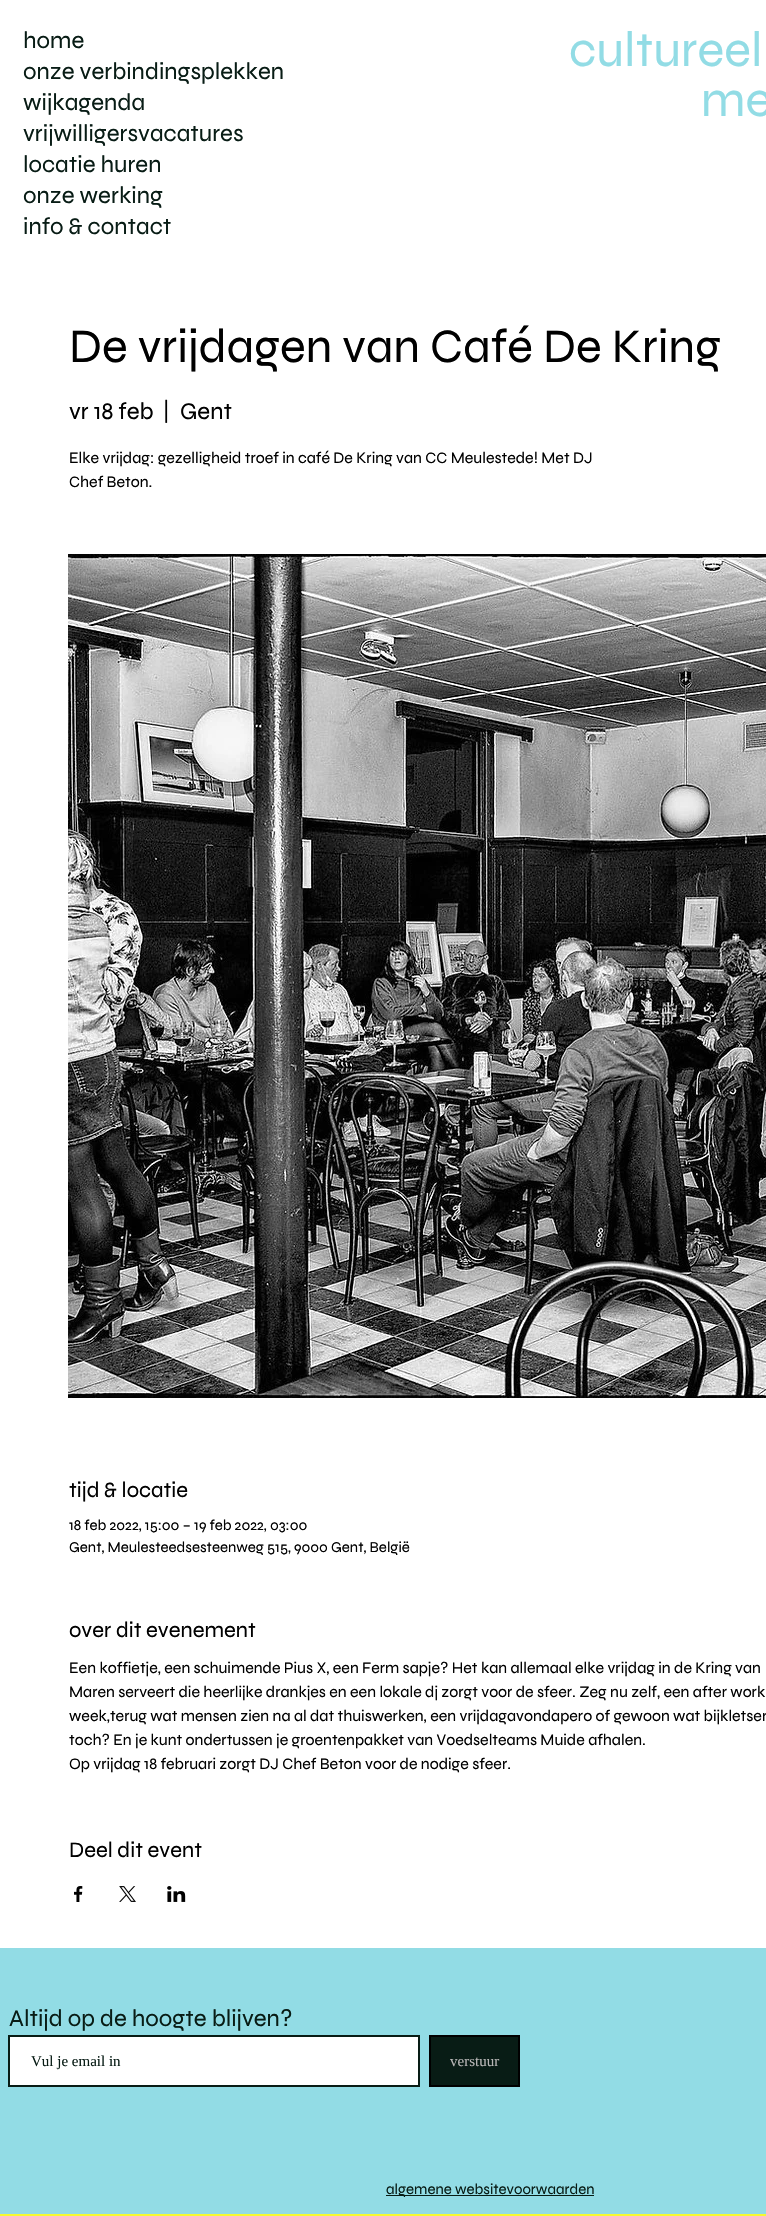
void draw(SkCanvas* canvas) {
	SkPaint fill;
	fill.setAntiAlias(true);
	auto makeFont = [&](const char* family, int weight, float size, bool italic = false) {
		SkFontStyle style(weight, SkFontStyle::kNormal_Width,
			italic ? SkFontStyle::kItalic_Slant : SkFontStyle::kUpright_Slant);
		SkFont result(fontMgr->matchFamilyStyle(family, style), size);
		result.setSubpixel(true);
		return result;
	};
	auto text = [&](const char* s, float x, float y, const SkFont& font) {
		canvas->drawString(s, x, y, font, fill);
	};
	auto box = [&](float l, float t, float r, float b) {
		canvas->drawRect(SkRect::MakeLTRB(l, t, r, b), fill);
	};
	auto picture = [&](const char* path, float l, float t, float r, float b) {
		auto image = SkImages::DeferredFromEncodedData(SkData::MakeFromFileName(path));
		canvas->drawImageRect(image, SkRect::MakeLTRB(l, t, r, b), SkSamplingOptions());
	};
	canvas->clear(0xFFF6F930);
	fill.setColor(0xFFFFFFFF);
	box(0, 0, 766, 1948);
	picture("image0.png", 68, 554, 766, 1398);
	picture("image1.png", 74, 1886, 83, 1902);
	picture("image2.png", 119, 1886, 136, 1902);
	picture("image3.png", 167, 1886, 186, 1902);
	fill.setColor(0xFF92DCE5);
	box(0, 1948, 766, 2214);
	fill.setColor(0xFFFFFFFF);
	canvas->drawRect(SkRect::MakeLTRB(9, 2036, 419, 2086), fill);
	fill.setStyle(SkPaint::kStroke_Style);
	fill.setStrokeWidth(2);
	fill.setColor(0xFF081C15);
	canvas->drawRect(SkRect::MakeLTRB(9, 2036, 419, 2086), fill);
	fill.setStyle(SkPaint::kFill_Style);
	canvas->drawRect(SkRect::MakeLTRB(430, 2036, 519, 2086), fill);
	fill.setStyle(SkPaint::kStroke_Style);
	fill.setColor(0xFF000000);
	canvas->drawRect(SkRect::MakeLTRB(430, 2036, 519, 2086), fill);
	fill.setStyle(SkPaint::kFill_Style);
	fill.setColor(0xFF081C15);
	box(386, 2195, 594, 2196);
	auto font1 = makeFont("Syne", 400, 24);
	text("home", 23, 48, font1);
	text("onze verbindingsplekken", 23, 79, font1);
	text("wijkagenda", 23, 110, font1);
	text("vrijwilligersvacatures", 23, 141, font1);
	text("locatie huren", 23, 172, font1);
	text("onze werking", 23, 203, font1);
	text("info & contact", 23, 234, font1);
	auto font2 = makeFont("Syne", 400, 50);
	fill.setColor(0xFF92DCE5);
	text("cultureel", 569, 66, font2);
	text("me", 701, 116, font2);
	auto font3 = makeFont("Syne", 400, 48);
	fill.setColor(0xFF000000);
	text("De vrijdagen van Café De Kring", 69, 362, font3);
	text("vr 18 feb", 69, 419, font1);
	text("|", 163, 419, font1);
	text("Gent", 180, 419, font1);
	auto font4 = makeFont("Syne", 400, 16);
	text("Elke vrijdag: gezelligheid troef in café De Kring van CC Meulestede! Met DJ", 69, 463, font4);
	text("Chef Beton.", 69, 487, font4);
	auto font5 = makeFont("Syne", 400, 22);
	text("tijd & locatie", 69, 1497, font5);
	auto font6 = makeFont("Syne", 400, 15);
	text("18 feb 2022, 15:00 – 19 feb 2022, 03:00", 69, 1530, font6);
	text("Gent, Meulesteedsesteenweg 515, 9000 Gent, België", 69, 1552, font6);
	text("over dit evenement", 69, 1637, font5);
	text("Een koffietje, een schuimende Pius X, een Ferm sapje? Het kan allemaal elke vrijdag in de Kring van", 69, 1673, font4);
	text("Maren serveert die heerlijke drankjes en een lokale dj zorgt voor de sfeer. Zeg nu zelf, een after work", 69, 1697, font4);
	text("week,terug wat mensen zien na al dat thuiswerken, een vrijdagavondapero of gewoon wat bijkletsen", 69, 1721, font4);
	text("toch? En je kunt ondertussen je groentenpakket van Voedselteams Muide afhalen.", 69, 1745, font4);
	text("Op vrijdag 18 februari zorgt DJ Chef Beton voor de nodige sfeer.", 69, 1769, font4);
	text("Deel dit event", 69, 1857, font5);
	fill.setColor(0xFF081C15);
	text("Altijd op de hoogte blijven?", 9, 2026, font1);
	auto font7 = makeFont("Liberation Serif", 400, 15);
	text("Vul je email in", 31, 2066, font7);
	fill.setColor(0xFFB8B6B6);
	text("verstuur", 450, 2066, font7);
	fill.setColor(0xFF081C15);
	text("algemene websitevoorwaarden", 386, 2194, font6);
}
